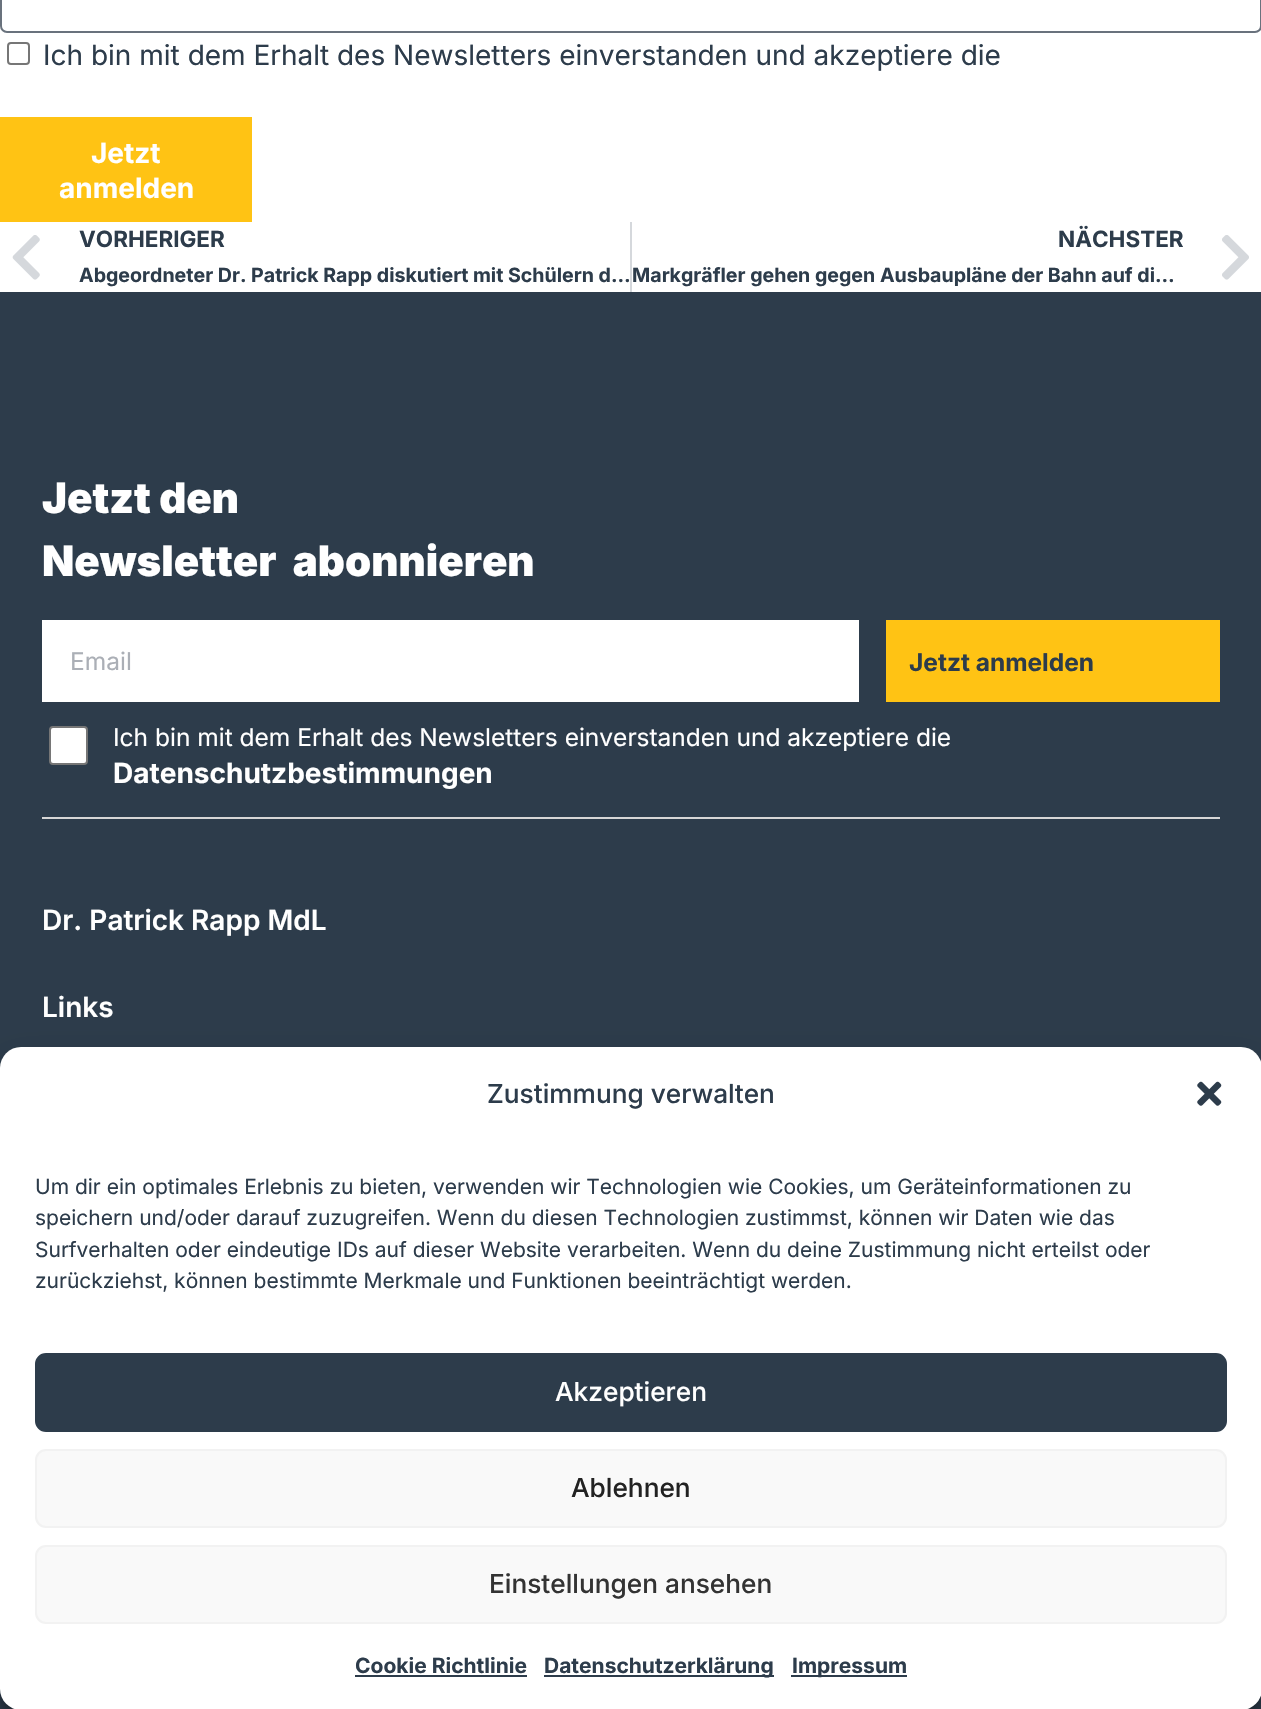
void draw(SkCanvas* canvas) {
	SkPaint fill;
	fill.setAntiAlias(true);
	auto makeFont = [&](const char* family, int weight, float size, bool italic = false) {
		SkFontStyle style(weight, SkFontStyle::kNormal_Width,
			italic ? SkFontStyle::kItalic_Slant : SkFontStyle::kUpright_Slant);
		SkFont result(fontMgr->matchFamilyStyle(family, style), size);
		result.setSubpixel(true);
		return result;
	};
	auto text = [&](const char* s, float x, float y, const SkFont& font) {
		canvas->drawString(s, x, y, font, fill);
	};
	auto spacedText = [&](const char* s, float x, float y, const SkFont& font, const SkPaint& ink, float letter, float word) {
		std::vector<SkGlyphID> glyphs(font.countText(s, strlen(s), SkTextEncoding::kUTF8));
		std::vector<float> xs(glyphs.size());
		font.textToGlyphs(s, strlen(s), SkTextEncoding::kUTF8, glyphs);
		font.getXPos(glyphs, xs, x);
		float extra = 0;
		for (size_t i = 0; i < glyphs.size(); i++) {
			xs[i] += extra;
			extra += letter + word * (glyphs[i] == font.unicharToGlyph(' '));
		}
		canvas->drawTextBlob(SkTextBlob::MakeFromPosHGlyphs(glyphs, xs, y, font), 0, 0, ink);
	};
	auto box = [&](float l, float t, float r, float b) {
		canvas->drawRect(SkRect::MakeLTRB(l, t, r, b), fill);
	};
	auto roundBox = [&](float l, float t, float r, float b, float radius) {
		canvas->drawRoundRect(SkRect::MakeLTRB(l, t, r, b), radius, radius, fill);
	};
	auto picture = [&](const char* path, float l, float t, float r, float b) {
		auto image = SkImages::DeferredFromEncodedData(SkData::MakeFromFileName(path));
		canvas->drawImageRect(image, SkRect::MakeLTRB(l, t, r, b), SkSamplingOptions());
	};
	canvas->clear(0xFFFFFFFF);
	fill.setStyle(SkPaint::kStroke_Style);
	fill.setStrokeWidth(2);
	fill.setColor(0xFF69727D);
	canvas->drawRoundRect(SkRect::MakeLTRB(1, -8, 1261, 32), 6, 6, fill);
	fill.setColor(0xFF767676);
	canvas->drawRoundRect(SkRect::MakeLTRB(8, 43, 29, 64), 3, 3, fill);
	fill.setStyle(SkPaint::kFill_Style);
	fill.setColor(0xFFFFC314);
	box(0, 117, 252, 222);
	picture("image0.png", 12, 235, 40, 280);
	fill.setColor(0xFFD5D8DC);
	box(630, 222, 632, 292);
	picture("image1.png", 1222, 235, 1249, 280);
	fill.setColor(0xFF2D3C4B);
	box(0, 292, 1261, 1709);
	fill.setColor(0xFFFFFFFF);
	box(42, 620, 859, 702);
	fill.setColor(0xFFFFC314);
	box(886, 620, 1220, 702);
	fill.setColor(0xFFFFFFFF);
	canvas->drawRoundRect(SkRect::MakeLTRB(50, 727, 87, 764), 3, 3, fill);
	fill.setStyle(SkPaint::kStroke_Style);
	fill.setColor(0xFF767676);
	canvas->drawRoundRect(SkRect::MakeLTRB(50, 727, 87, 764), 3, 3, fill);
	fill.setStyle(SkPaint::kFill_Style);
	fill.setColor(0xFFD6D6D6);
	box(42, 817, 1220, 819);
	fill.setColor(0x3B000000);
	fill.setMaskFilter(SkMaskFilter::MakeBlur(kNormal_SkBlurStyle, 5));
	canvas->drawRoundRect(SkRect::MakeLTRB(0, 1057, 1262, 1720), 21, 21, fill);
	fill.setMaskFilter(nullptr);
	fill.setColor(0x30000000);
	fill.setMaskFilter(SkMaskFilter::MakeBlur(kNormal_SkBlurStyle, 17.5f));
	canvas->drawRoundRect(SkRect::MakeLTRB(0, 1064, 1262, 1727), 21, 21, fill);
	fill.setMaskFilter(nullptr);
	fill.setColor(0xFFFFFFFF);
	roundBox(0, 1047, 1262, 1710, 21);
	picture("image2.png", 1197, 1081, 1222, 1106);
	fill.setColor(0xFF2D3C4B);
	canvas->drawRoundRect(SkRect::MakeLTRB(36, 1354, 1226, 1431), 10, 10, fill);
	fill.setStyle(SkPaint::kStroke_Style);
	canvas->drawRoundRect(SkRect::MakeLTRB(36, 1354, 1226, 1431), 10, 10, fill);
	fill.setStyle(SkPaint::kFill_Style);
	fill.setColor(0xFFF9F9F9);
	canvas->drawRoundRect(SkRect::MakeLTRB(36, 1450, 1226, 1527), 10, 10, fill);
	fill.setStyle(SkPaint::kStroke_Style);
	fill.setColor(0xFFF2F2F2);
	canvas->drawRoundRect(SkRect::MakeLTRB(36, 1450, 1226, 1527), 10, 10, fill);
	fill.setStyle(SkPaint::kFill_Style);
	fill.setColor(0xFFF9F9F9);
	canvas->drawRoundRect(SkRect::MakeLTRB(36, 1546, 1226, 1623), 10, 10, fill);
	fill.setStyle(SkPaint::kStroke_Style);
	fill.setColor(0xFFF2F2F2);
	canvas->drawRoundRect(SkRect::MakeLTRB(36, 1546, 1226, 1623), 10, 10, fill);
	fill.setStyle(SkPaint::kFill_Style);
	fill.setColor(0xFF2D3C4B);
	box(355, 1675, 527, 1677);
	box(544, 1675, 774, 1677);
	box(791, 1675, 907, 1677);
	auto font1 = makeFont("Inter", 400, 28);
	text("Ich bin mit dem Erhalt des Newsletters einverstanden und akzeptiere die", 43, 65, font1);
	auto font2 = makeFont("Inter", 700, 28);
	fill.setColor(0xFFFFFFFF);
	text("Jetzt", 91, 163, font2);
	text("anmelden", 59, 198, font2);
	auto font3 = makeFont("Inter", 700, 22.5f);
	fill.setColor(0xFF2D3C4B);
	text("VORHERIGER", 79, 247, font3);
	auto font4 = makeFont("Inter", 700, 19.6f);
	text("Abgeordneter Dr. Patrick Rapp diskutiert mit Schülern d…", 79, 282, font4);
	text("NÄCHSTER", 1058, 247, font3);
	text("Markgräfler gehen gegen Ausbaupläne der Bahn auf di…", 632, 282, font4);
	auto font5 = makeFont("Inter", 900, 42);
	fill.setColor(0xFFFFFFFF);
	text("Jetzt den", 42, 513, font5);
	spacedText("Newsletter abonnieren", 42, 576, font5, fill, 0, 8);
	auto font6 = makeFont("Inter", 400, 24.5f);
	fill.setColor(0xFFABAFB6);
	text("Email", 70, 670, font6);
	auto font7 = makeFont("Inter", 700, 24.5f);
	fill.setColor(0xFF2D3C4B);
	text("Jetzt anmelden", 909, 671, font7);
	fill.setColor(0xFFFFFFFF);
	text("Ich bin mit dem Erhalt des Newsletters einverstanden und akzeptiere die", 113, 746, font6);
	text("Datenschutzbestimmungen", 113, 783, font2);
	auto font8 = makeFont("Inter", 600, 28);
	text("Dr. Patrick Rapp MdL", 42, 930, font8);
	text("Links", 42, 1017, font8);
	auto font9 = makeFont("Inter", 500, 26.25f);
	fill.setColor(0xFF2D3C4B);
	text("Zustimmung verwalten", 487, 1103, font9);
	auto font10 = makeFont("Inter", 400, 21);
	text("Um dir ein optimales Erlebnis zu bieten, verwenden wir Technologien wie Cookies, um Geräteinformationen zu", 35, 1194, font10);
	text("speichern und/oder darauf zuzugreifen. Wenn du diesen Technologien zustimmst, können wir Daten wie das", 35, 1225, font10);
	text("Surfverhalten oder eindeutige IDs auf dieser Website verarbeiten. Wenn du deine Zustimmung nicht erteilst oder", 35, 1257, font10);
	text("zurückziehst, können bestimmte Merkmale und Funktionen beeinträchtigt werden.", 35, 1288, font10);
	fill.setColor(0xFFFFFFFF);
	text("Akzeptieren", 555, 1401, font9);
	fill.setColor(0xFF222222);
	text("Ablehnen", 571, 1497, font9);
	fill.setColor(0xFF333333);
	text("Einstellungen ansehen", 489, 1593, font9);
	auto font11 = makeFont("Inter", 700, 21);
	fill.setColor(0xFF2D3C4B);
	text("Cookie Richtlinie", 355, 1673, font11);
	text("Datenschutzerklärung", 544, 1673, font11);
	text("Impressum", 792, 1673, font11);
}
